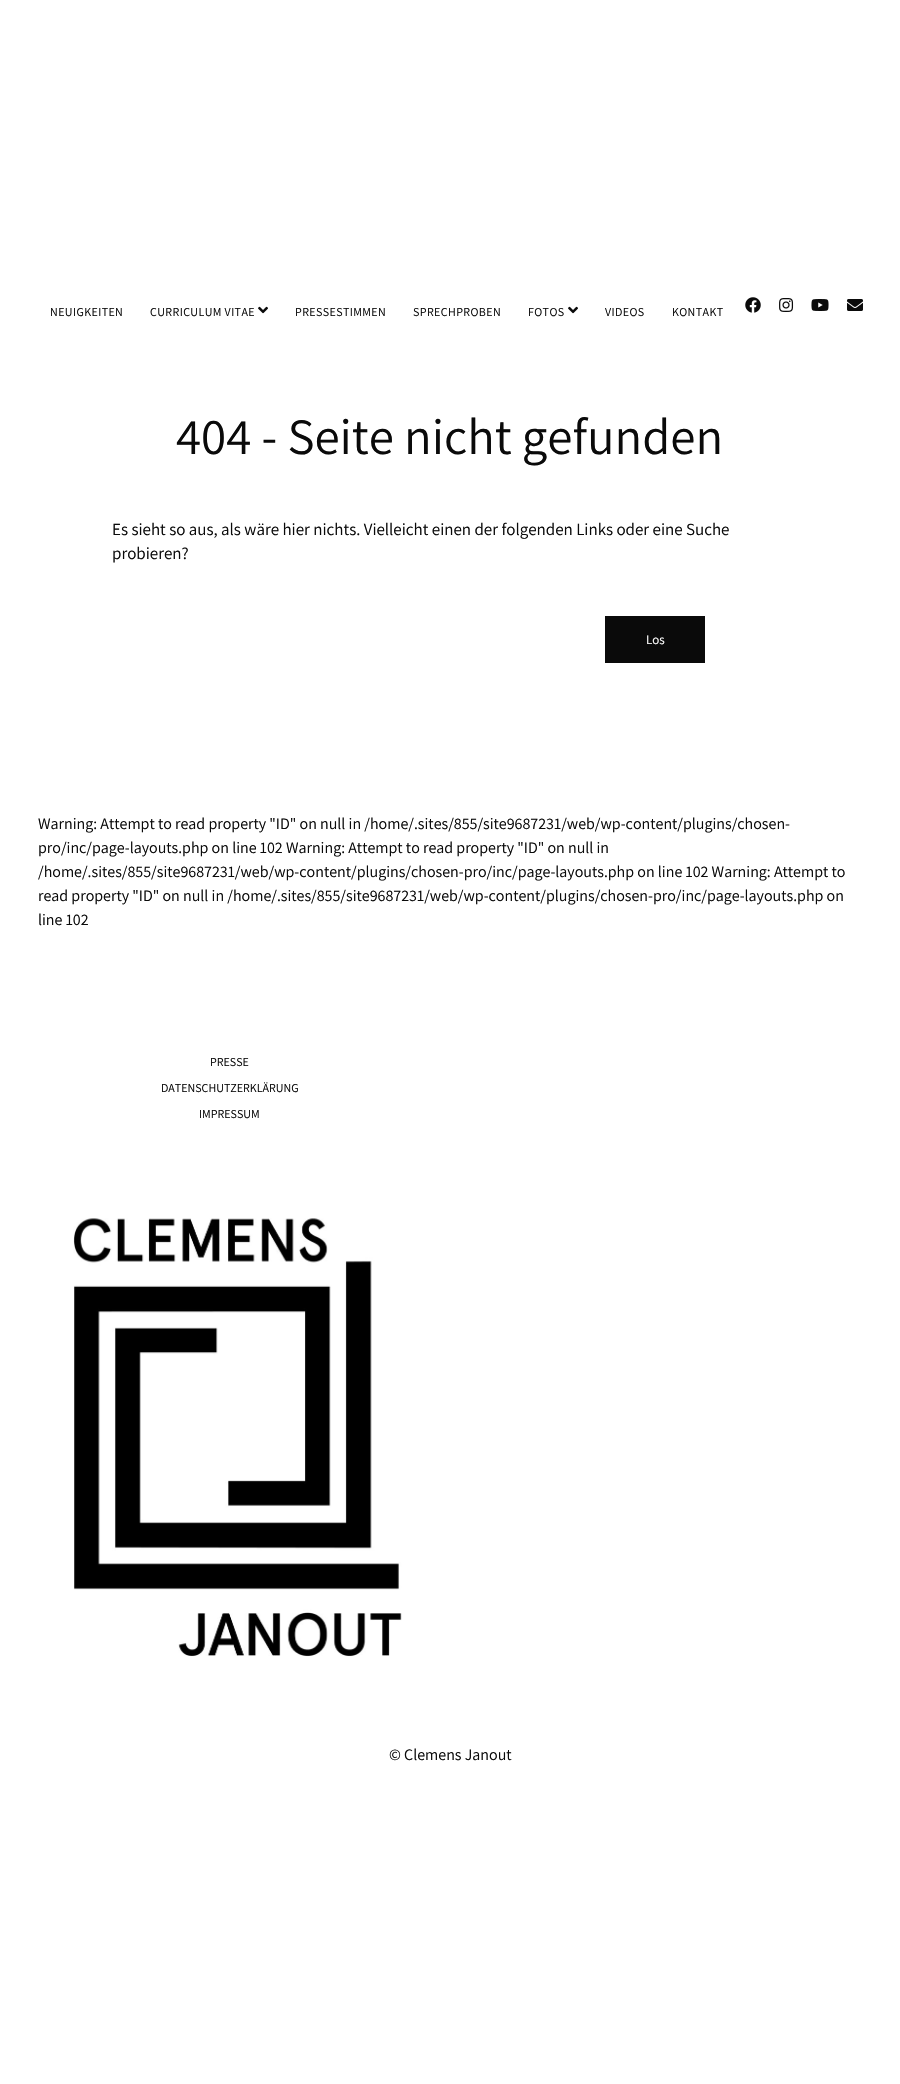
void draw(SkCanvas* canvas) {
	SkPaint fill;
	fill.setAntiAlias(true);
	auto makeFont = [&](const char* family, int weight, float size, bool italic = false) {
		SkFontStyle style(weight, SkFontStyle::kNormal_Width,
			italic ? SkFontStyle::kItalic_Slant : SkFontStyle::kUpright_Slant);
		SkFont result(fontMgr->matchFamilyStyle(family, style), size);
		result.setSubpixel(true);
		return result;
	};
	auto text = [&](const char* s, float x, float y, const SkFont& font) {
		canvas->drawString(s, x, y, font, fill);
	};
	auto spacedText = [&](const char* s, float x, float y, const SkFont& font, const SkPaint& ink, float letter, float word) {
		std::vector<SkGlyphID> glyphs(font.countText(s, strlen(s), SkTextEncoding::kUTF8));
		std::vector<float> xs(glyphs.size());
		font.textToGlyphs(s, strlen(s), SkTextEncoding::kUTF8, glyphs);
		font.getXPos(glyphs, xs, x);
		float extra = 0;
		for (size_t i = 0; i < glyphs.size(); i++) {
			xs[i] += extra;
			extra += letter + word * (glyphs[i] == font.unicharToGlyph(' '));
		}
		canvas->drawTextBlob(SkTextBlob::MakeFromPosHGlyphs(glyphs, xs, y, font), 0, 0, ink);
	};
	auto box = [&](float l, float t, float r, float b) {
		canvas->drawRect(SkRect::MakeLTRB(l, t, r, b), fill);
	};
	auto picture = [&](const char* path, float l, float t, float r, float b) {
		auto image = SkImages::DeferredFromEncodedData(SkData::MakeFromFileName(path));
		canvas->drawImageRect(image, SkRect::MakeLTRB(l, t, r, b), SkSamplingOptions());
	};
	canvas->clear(0xFFFFFFFF);
	picture("image0.png", 258, 306, 268, 314);
	picture("image0.png", 568, 306, 578, 314);
	picture("image1.png", 745, 297, 761, 313);
	picture("image2.png", 779, 298, 794, 312);
	picture("image3.png", 811, 299, 829, 311);
	picture("image4.png", 847, 299, 863, 311);
	fill.setColor(0xFF0A0A0A);
	box(605, 616, 705, 663);
	picture("image5.png", 73, 1218, 402, 1657);
	auto font1 = makeFont("Assistant", 200, 12);
	spacedText("NEUIGKEITEN", 50, 316, font1, fill, 0.4f, 0);
	spacedText("CURRICULUM VITAE", 150, 316, font1, fill, 0.4f, 0);
	spacedText("PRESSESTIMMEN", 295, 316, font1, fill, 0.4f, 0);
	spacedText("SPRECHPROBEN", 413, 316, font1, fill, 0.4f, 0);
	spacedText("FOTOS", 528, 316, font1, fill, 0.4f, 0);
	spacedText("VIDEOS", 605, 316, font1, fill, 0.4f, 0);
	spacedText("KONTAKT", 672, 316, font1, fill, 0.4f, 0);
	auto font2 = makeFont("Assistant", 200, 51);
	text("404 - Seite nicht gefunden", 176, 454, font2);
	auto font3 = makeFont("Assistant", 200, 17);
	text("Es sieht so aus, als wäre hier nichts. Vielleicht einen der folgenden Links oder eine Suche", 112, 535, font3);
	text("probieren?", 112, 559, font3);
	auto font4 = makeFont("Assistant", 200, 13);
	fill.setColor(0xFFFFFFFF);
	text("Los", 646, 644, font4);
	auto font5 = makeFont("Assistant", 200, 16);
	fill.setColor(0xFF0A0A0A);
	text("Warning: Attempt to read property \"ID\" on null in /home/.sites/855/site9687231/web/wp-content/plugins/chosen-", 38, 829, font5);
	text("pro/inc/page-layouts.php on line 102 Warning: Attempt to read property \"ID\" on null in", 38, 853, font5);
	text("/home/.sites/855/site9687231/web/wp-content/plugins/chosen-pro/inc/page-layouts.php on line 102 Warning: Attempt to", 38, 877, font5);
	text("read property \"ID\" on null in /home/.sites/855/site9687231/web/wp-content/plugins/chosen-pro/inc/page-layouts.php on", 38, 901, font5);
	text("line 102", 38, 925, font5);
	text("PRESSE", 210, 1066, font1);
	text("DATENSCHUTZERKLÄRUNG", 161, 1092, font1);
	text("IMPRESSUM", 199, 1118, font1);
	text("© Clemens Janout", 389, 1760, font5);
}
